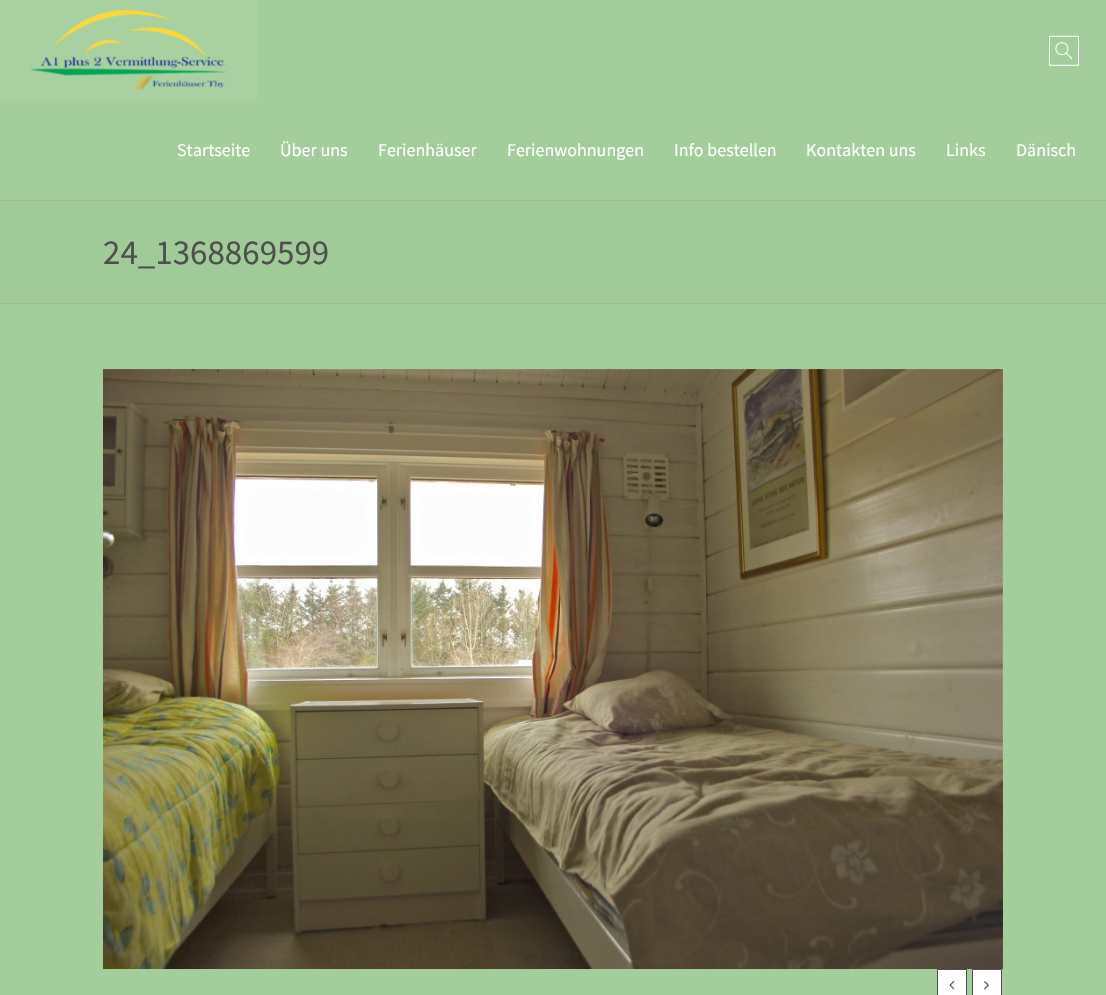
void draw(SkCanvas* canvas) {
	SkPaint fill;
	fill.setAntiAlias(true);
	auto makeFont = [&](const char* family, int weight, float size, bool italic = false) {
		SkFontStyle style(weight, SkFontStyle::kNormal_Width,
			italic ? SkFontStyle::kItalic_Slant : SkFontStyle::kUpright_Slant);
		SkFont result(fontMgr->matchFamilyStyle(family, style), size);
		result.setSubpixel(true);
		return result;
	};
	auto text = [&](const char* s, float x, float y, const SkFont& font) {
		canvas->drawString(s, x, y, font, fill);
	};
	auto box = [&](float l, float t, float r, float b) {
		canvas->drawRect(SkRect::MakeLTRB(l, t, r, b), fill);
	};
	auto picture = [&](const char* path, float l, float t, float r, float b) {
		auto image = SkImages::DeferredFromEncodedData(SkData::MakeFromFileName(path));
		canvas->drawImageRect(image, SkRect::MakeLTRB(l, t, r, b), SkSamplingOptions());
	};
	canvas->clear(0xFFA3CE9B);
	fill.setColor(0xFFA8D0A0);
	box(0, 0, 257, 100);
	picture("image0.png", 30, 9, 227, 90);
	picture("image1.png", 1049, 35, 1079, 66);
	fill.setColor(0xFFA0CA98);
	box(0, 201, 1106, 303);
	fill.setColor(0xFF98C090);
	box(0, 200, 1106, 201);
	box(0, 303, 1106, 304);
	picture("image2.png", 103, 369, 1003, 969);
	fill.setColor(0xFFFFFFFF);
	canvas->drawRect(SkRect::MakeLTRB(937.5f, 969.5f, 966.5f, 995.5f), fill);
	fill.setStyle(SkPaint::kStroke_Style);
	fill.setStrokeWidth(1);
	fill.setColor(0xFF4F4F4F);
	canvas->drawRect(SkRect::MakeLTRB(937.5f, 969.5f, 966.5f, 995.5f), fill);
	picture("image3.png", 949, 981, 955, 990);
	fill.setStyle(SkPaint::kFill_Style);
	fill.setColor(0xFFFFFFFF);
	canvas->drawRect(SkRect::MakeLTRB(972.5f, 969.5f, 1001.5f, 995.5f), fill);
	fill.setStyle(SkPaint::kStroke_Style);
	fill.setColor(0xFF4F4F4F);
	canvas->drawRect(SkRect::MakeLTRB(972.5f, 969.5f, 1001.5f, 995.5f), fill);
	picture("image4.png", 984, 981, 989, 990);
	auto font1 = makeFont("Source Sans Pro", 400, 18);
	fill.setStyle(SkPaint::kFill_Style);
	fill.setColor(0xFFFFFFFF);
	text("Startseite", 177, 156, font1);
	text("Über uns", 280, 156, font1);
	text("Ferienhäuser", 378, 156, font1);
	text("Ferienwohnungen", 507, 156, font1);
	text("Info bestellen", 674, 156, font1);
	text("Kontakten uns", 806, 156, font1);
	text("Links", 946, 156, font1);
	text("Dänisch", 1016, 156, font1);
	auto font2 = makeFont("Source Sans Pro", 400, 35);
	fill.setColor(0xFF4F4F4F);
	text("24_1368869599", 103, 264, font2);
}
